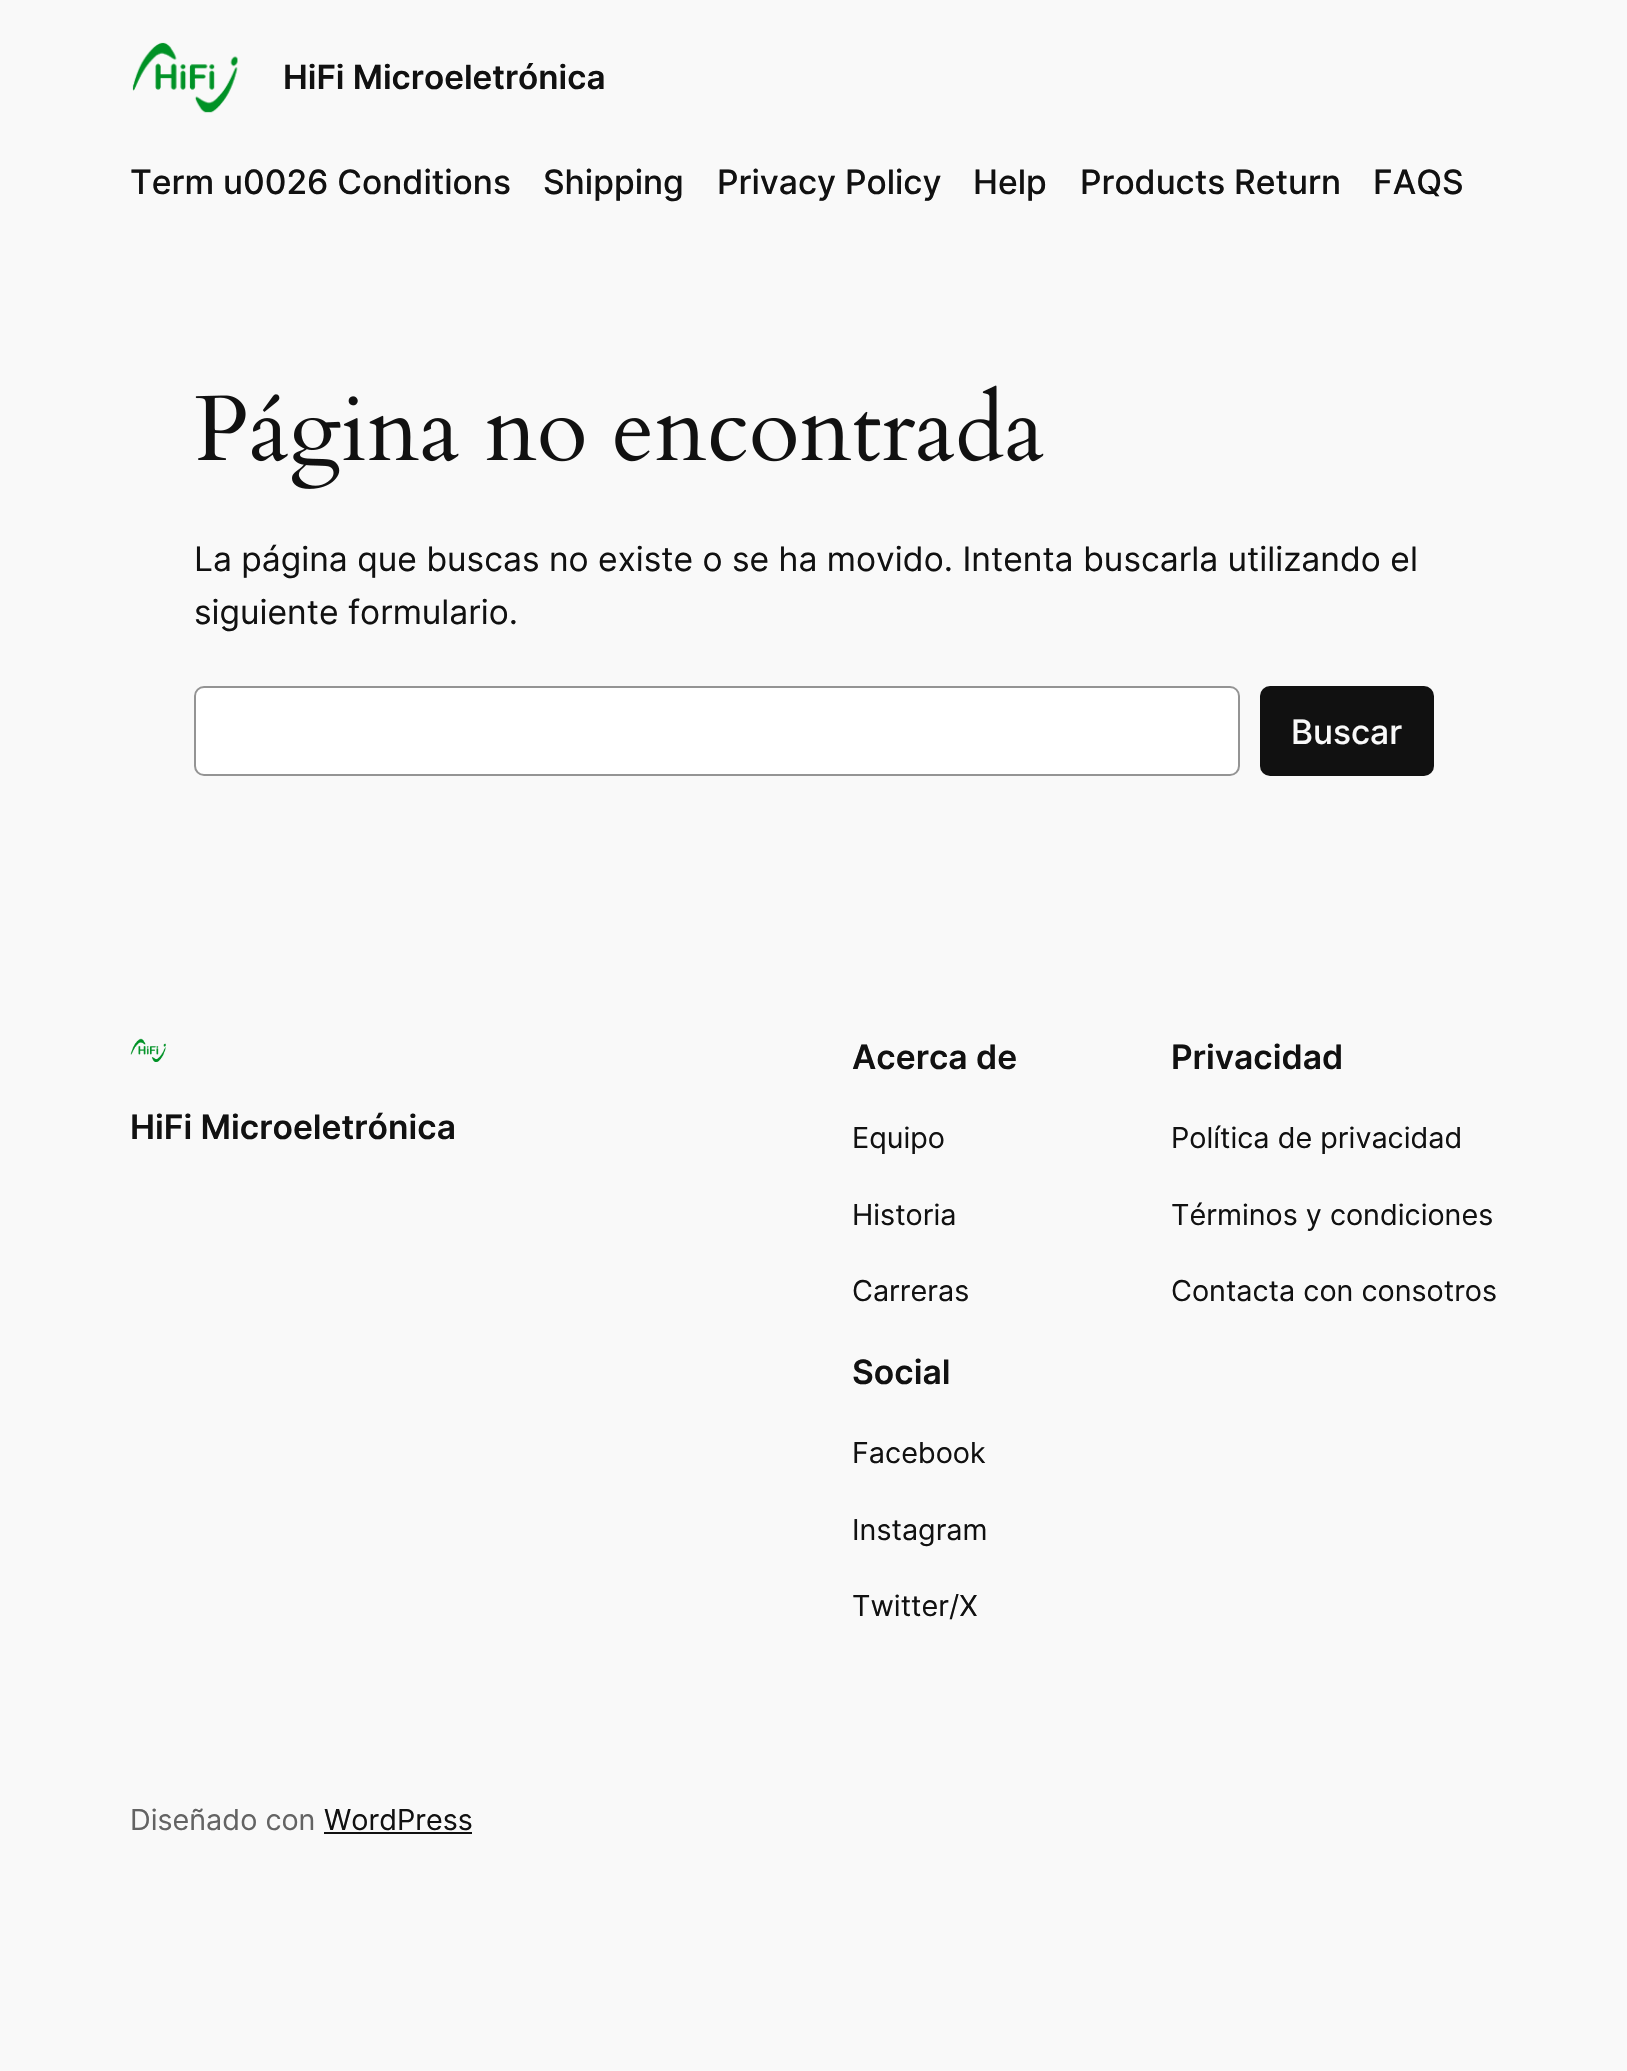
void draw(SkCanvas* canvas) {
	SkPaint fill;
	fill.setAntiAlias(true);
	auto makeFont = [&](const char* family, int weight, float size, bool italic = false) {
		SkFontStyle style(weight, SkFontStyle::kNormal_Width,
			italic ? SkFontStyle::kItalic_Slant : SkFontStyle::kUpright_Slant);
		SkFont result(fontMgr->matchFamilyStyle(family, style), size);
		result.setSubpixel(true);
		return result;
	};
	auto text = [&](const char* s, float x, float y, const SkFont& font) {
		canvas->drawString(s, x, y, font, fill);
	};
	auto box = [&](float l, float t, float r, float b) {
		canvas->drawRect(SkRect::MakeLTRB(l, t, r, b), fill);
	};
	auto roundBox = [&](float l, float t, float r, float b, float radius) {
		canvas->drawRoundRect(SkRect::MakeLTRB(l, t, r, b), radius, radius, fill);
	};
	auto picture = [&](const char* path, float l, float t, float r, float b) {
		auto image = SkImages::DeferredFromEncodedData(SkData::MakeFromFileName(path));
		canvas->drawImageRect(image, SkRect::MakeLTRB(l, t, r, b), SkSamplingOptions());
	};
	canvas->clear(0xFFF9F9F9);
	picture("image0.png", 132, 42, 238, 113);
	picture("image1.png", 195, 385, 1044, 489);
	fill.setColor(0xFFFFFFFF);
	canvas->drawRoundRect(SkRect::MakeLTRB(195, 687, 1239, 775), 9, 9, fill);
	fill.setStyle(SkPaint::kStroke_Style);
	fill.setStrokeWidth(2);
	fill.setColor(0xFF949494);
	canvas->drawRoundRect(SkRect::MakeLTRB(195, 687, 1239, 775), 9, 9, fill);
	fill.setStyle(SkPaint::kFill_Style);
	fill.setColor(0xFF111111);
	roundBox(1260, 686, 1434, 776, 10);
	picture("image2.png", 130, 1038, 166, 1062);
	box(324, 1832, 472, 1834);
	auto font1 = makeFont("Inter", 600, 33.25f);
	text("HiFi Microeletrónica", 283, 89, font1);
	auto font2 = makeFont("Inter", 500, 33.6f);
	text("Term u0026 Conditions", 130, 194, font2);
	text("Shipping", 543, 194, font2);
	text("Privacy Policy", 717, 194, font2);
	text("Help", 973, 194, font2);
	text("Products Return", 1080, 194, font2);
	text("FAQS", 1373, 194, font2);
	auto font3 = makeFont("Inter", 400, 33.6f);
	text("La página que buscas no existe o se ha movido. Intenta buscarla utilizando el", 194, 571, font3);
	text("siguiente formulario.", 194, 624, font3);
	fill.setColor(0xFFF9F9F9);
	text("Buscar", 1291, 744, font2);
	auto font4 = makeFont("Inter", 600, 33.6f);
	fill.setColor(0xFF111111);
	text("HiFi Microeletrónica", 130, 1139, font4);
	text("Acerca de", 852, 1069, font4);
	auto font5 = makeFont("Inter", 400, 28.75f);
	text("Equipo", 852, 1148, font5);
	text("Historia", 852, 1225, font5);
	text("Carreras", 852, 1301, font5);
	text("Privacidad", 1171, 1069, font4);
	text("Política de privacidad", 1171, 1148, font5);
	text("Términos y condiciones", 1171, 1225, font5);
	text("Contacta con consotros", 1171, 1301, font5);
	text("Social", 852, 1384, font4);
	text("Facebook", 852, 1463, font5);
	text("Instagram", 852, 1540, font5);
	text("Twitter/X", 852, 1616, font5);
	fill.setColor(0xFF636363);
	text("Diseñado con", 130, 1830, font5);
	fill.setColor(0xFF111111);
	text("WordPress", 324, 1830, font5);
}
